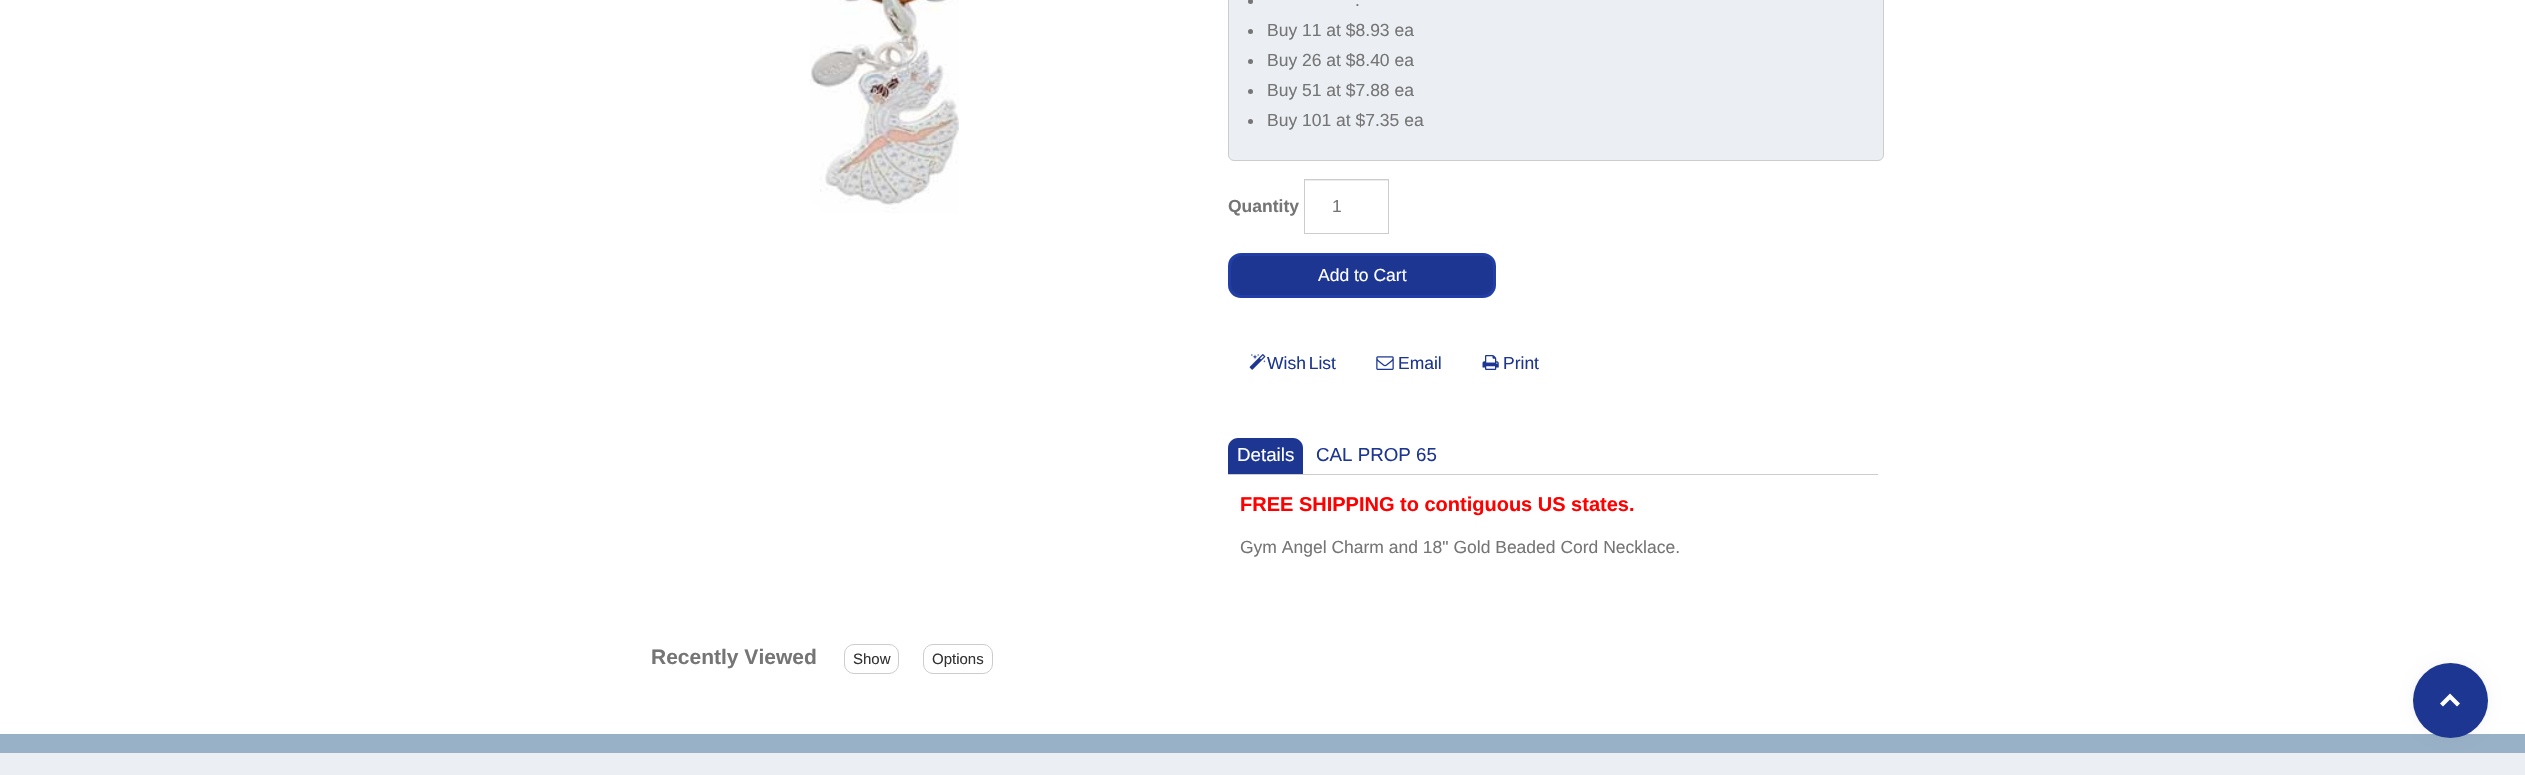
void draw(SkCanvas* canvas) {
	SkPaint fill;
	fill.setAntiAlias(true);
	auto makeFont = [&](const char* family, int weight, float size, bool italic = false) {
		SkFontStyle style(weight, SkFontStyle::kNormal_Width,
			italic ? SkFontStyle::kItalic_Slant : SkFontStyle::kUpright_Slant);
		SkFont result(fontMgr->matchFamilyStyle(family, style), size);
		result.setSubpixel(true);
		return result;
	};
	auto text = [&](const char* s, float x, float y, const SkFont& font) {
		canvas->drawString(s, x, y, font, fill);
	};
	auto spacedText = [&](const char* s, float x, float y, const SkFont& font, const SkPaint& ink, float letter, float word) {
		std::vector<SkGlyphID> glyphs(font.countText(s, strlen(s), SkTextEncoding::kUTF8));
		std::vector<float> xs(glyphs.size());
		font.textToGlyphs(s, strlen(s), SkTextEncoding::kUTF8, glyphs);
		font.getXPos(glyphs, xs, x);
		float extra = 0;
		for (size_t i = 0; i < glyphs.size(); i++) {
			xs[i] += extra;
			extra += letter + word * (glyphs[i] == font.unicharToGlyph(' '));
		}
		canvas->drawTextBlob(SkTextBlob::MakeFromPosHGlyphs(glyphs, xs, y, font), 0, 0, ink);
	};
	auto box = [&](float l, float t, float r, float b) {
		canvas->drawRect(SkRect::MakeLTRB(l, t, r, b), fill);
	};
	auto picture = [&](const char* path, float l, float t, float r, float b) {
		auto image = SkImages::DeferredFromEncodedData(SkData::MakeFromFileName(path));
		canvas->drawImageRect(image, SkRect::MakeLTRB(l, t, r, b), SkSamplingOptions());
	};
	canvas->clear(0xFFFFFFFF);
	picture("image0.png", 810, 0, 959, 213);
	fill.setColor(0xFFEBEFF4);
	canvas->drawRoundRect(SkRect::MakeLTRB(1228.5f, -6.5f, 1883.5f, 160.5f), 5.5f, 5.5f, fill);
	fill.setStyle(SkPaint::kStroke_Style);
	fill.setStrokeWidth(1);
	fill.setColor(0xFFCCCCCC);
	canvas->drawRoundRect(SkRect::MakeLTRB(1228.5f, -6.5f, 1883.5f, 160.5f), 5.5f, 5.5f, fill);
	fill.setStyle(SkPaint::kFill_Style);
	fill.setColor(0xFF757575);
	canvas->drawCircle(1250.5f, 1.5f, 2.5f, fill);
	canvas->drawCircle(1250.5f, 31.5f, 2.5f, fill);
	canvas->drawCircle(1250.5f, 61.5f, 2.5f, fill);
	canvas->drawCircle(1250.5f, 91.5f, 2.5f, fill);
	canvas->drawCircle(1250.5f, 121.5f, 2.5f, fill);
	fill.setColor(0xFFECECEC);
	box(1305, 180, 1388, 181);
	fill.setStyle(SkPaint::kStroke_Style);
	fill.setColor(0xFFCCCCCC);
	canvas->drawRect(SkRect::MakeLTRB(1304.5f, 179.5f, 1388.5f, 233.5f), fill);
	fill.setStyle(SkPaint::kFill_Style);
	fill.setColor(0xFF1C3691);
	canvas->drawRoundRect(SkRect::MakeLTRB(1229.5f, 254.5f, 1494.5f, 296.5f), 11.5f, 11.5f, fill);
	fill.setStyle(SkPaint::kStroke_Style);
	fill.setStrokeWidth(3);
	fill.setColor(0xFF203EA6);
	canvas->drawRoundRect(SkRect::MakeLTRB(1229.5f, 254.5f, 1494.5f, 296.5f), 11.5f, 11.5f, fill);
	picture("image1.png", 1249, 354, 1266, 370);
	picture("image2.png", 1376, 356, 1394, 370);
	picture("image3.png", 1482, 355, 1499, 370);
	fill.setStyle(SkPaint::kFill_Style);
	fill.setColor(0xFF1C3691);
	canvas->drawPath(SkPathBuilder().moveTo(1238, 438).lineTo(1293, 438).cubicTo(1298.5f, 438, 1303, 442.5f, 1303, 448).lineTo(1303, 474).lineTo(1228, 474).lineTo(1228, 448).cubicTo(1228, 442.5f, 1232.5f, 438, 1238, 438).close().detach(), fill);
	fill.setColor(0xFFCCCCCC);
	box(1228, 474, 1878, 475);
	fill.setStyle(SkPaint::kStroke_Style);
	fill.setStrokeWidth(1);
	canvas->drawRoundRect(SkRect::MakeLTRB(844.5f, 644.5f, 898.5f, 673.5f), 9.5f, 9.5f, fill);
	canvas->drawRoundRect(SkRect::MakeLTRB(923.5f, 644.5f, 992.5f, 673.5f), 9.5f, 9.5f, fill);
	fill.setStyle(SkPaint::kFill_Style);
	fill.setColor(0xFFEBEFF4);
	box(0, 753, 2525, 775);
	fill.setColor(0xFF99B1C7);
	box(0, 734, 2525, 753);
	fill.setColor(0x0D000000);
	fill.setMaskFilter(SkMaskFilter::MakeBlur(kNormal_SkBlurStyle, 6));
	canvas->drawRoundRect(SkRect::MakeLTRB(2413, 663, 2488, 738), 37.5f, 37.5f, fill);
	fill.setMaskFilter(nullptr);
	fill.setColor(0xFF1C3691);
	canvas->drawCircle(2450.5f, 700.5f, 37.5f, fill);
	fill.setColor(0xFFFFFFFF);
	canvas->drawPath(SkPathBuilder().moveTo(2450, 693.5f).lineTo(2460, 703.5f).lineTo(2457, 706.5f).lineTo(2450, 699.5f).lineTo(2443, 706.5f).lineTo(2440, 703.5f).close().detach(), fill);
	auto font1 = makeFont("Liberation Sans", 400, 17.5f);
	fill.setColor(0xFF757575);
	text(".", 1355, 6, font1);
	text("Buy 11 at $8.93 ea", 1267, 36, font1);
	text("Buy 26 at $8.40 ea", 1267, 66, font1);
	text("Buy 51 at $7.88 ea", 1267, 96, font1);
	text("Buy 101 at $7.35 ea", 1267, 126, font1);
	auto font2 = makeFont("Liberation Sans", 700, 17.5f);
	text("Quantity", 1228, 212, font2);
	text("1", 1332, 212, font1);
	fill.setColor(0xFFFFFFFF);
	text("Add to Cart", 1318, 281, font1);
	fill.setColor(0xFF1C3691);
	spacedText("Wish List", 1267, 369, font1, fill, 0, -2);
	text("Email", 1398, 369, font1);
	text("Print", 1503, 369, font1);
	auto font3 = makeFont("Liberation Sans", 400, 18.75f);
	fill.setColor(0xFFFFFFFF);
	text("Details", 1237, 461, font3);
	fill.setColor(0xFF1C3691);
	text("CAL PROP 65", 1316, 461, font3);
	auto font4 = makeFont("Liberation Sans", 700, 20);
	fill.setColor(0xFFFF0000);
	text("FREE SHIPPING to contiguous US states.", 1240, 511, font4);
	fill.setColor(0xFF757575);
	text("Gym Angel Charm and 18\" Gold Beaded Cord Necklace.", 1240, 553, font1);
	auto font5 = makeFont("Liberation Sans", 700, 21);
	text("Recently Viewed", 651, 664, font5);
	auto font6 = makeFont("Liberation Sans", 400, 15);
	fill.setColor(0xFF333333);
	text("Show", 853, 664, font6);
	text("Options", 932, 664, font6);
}
